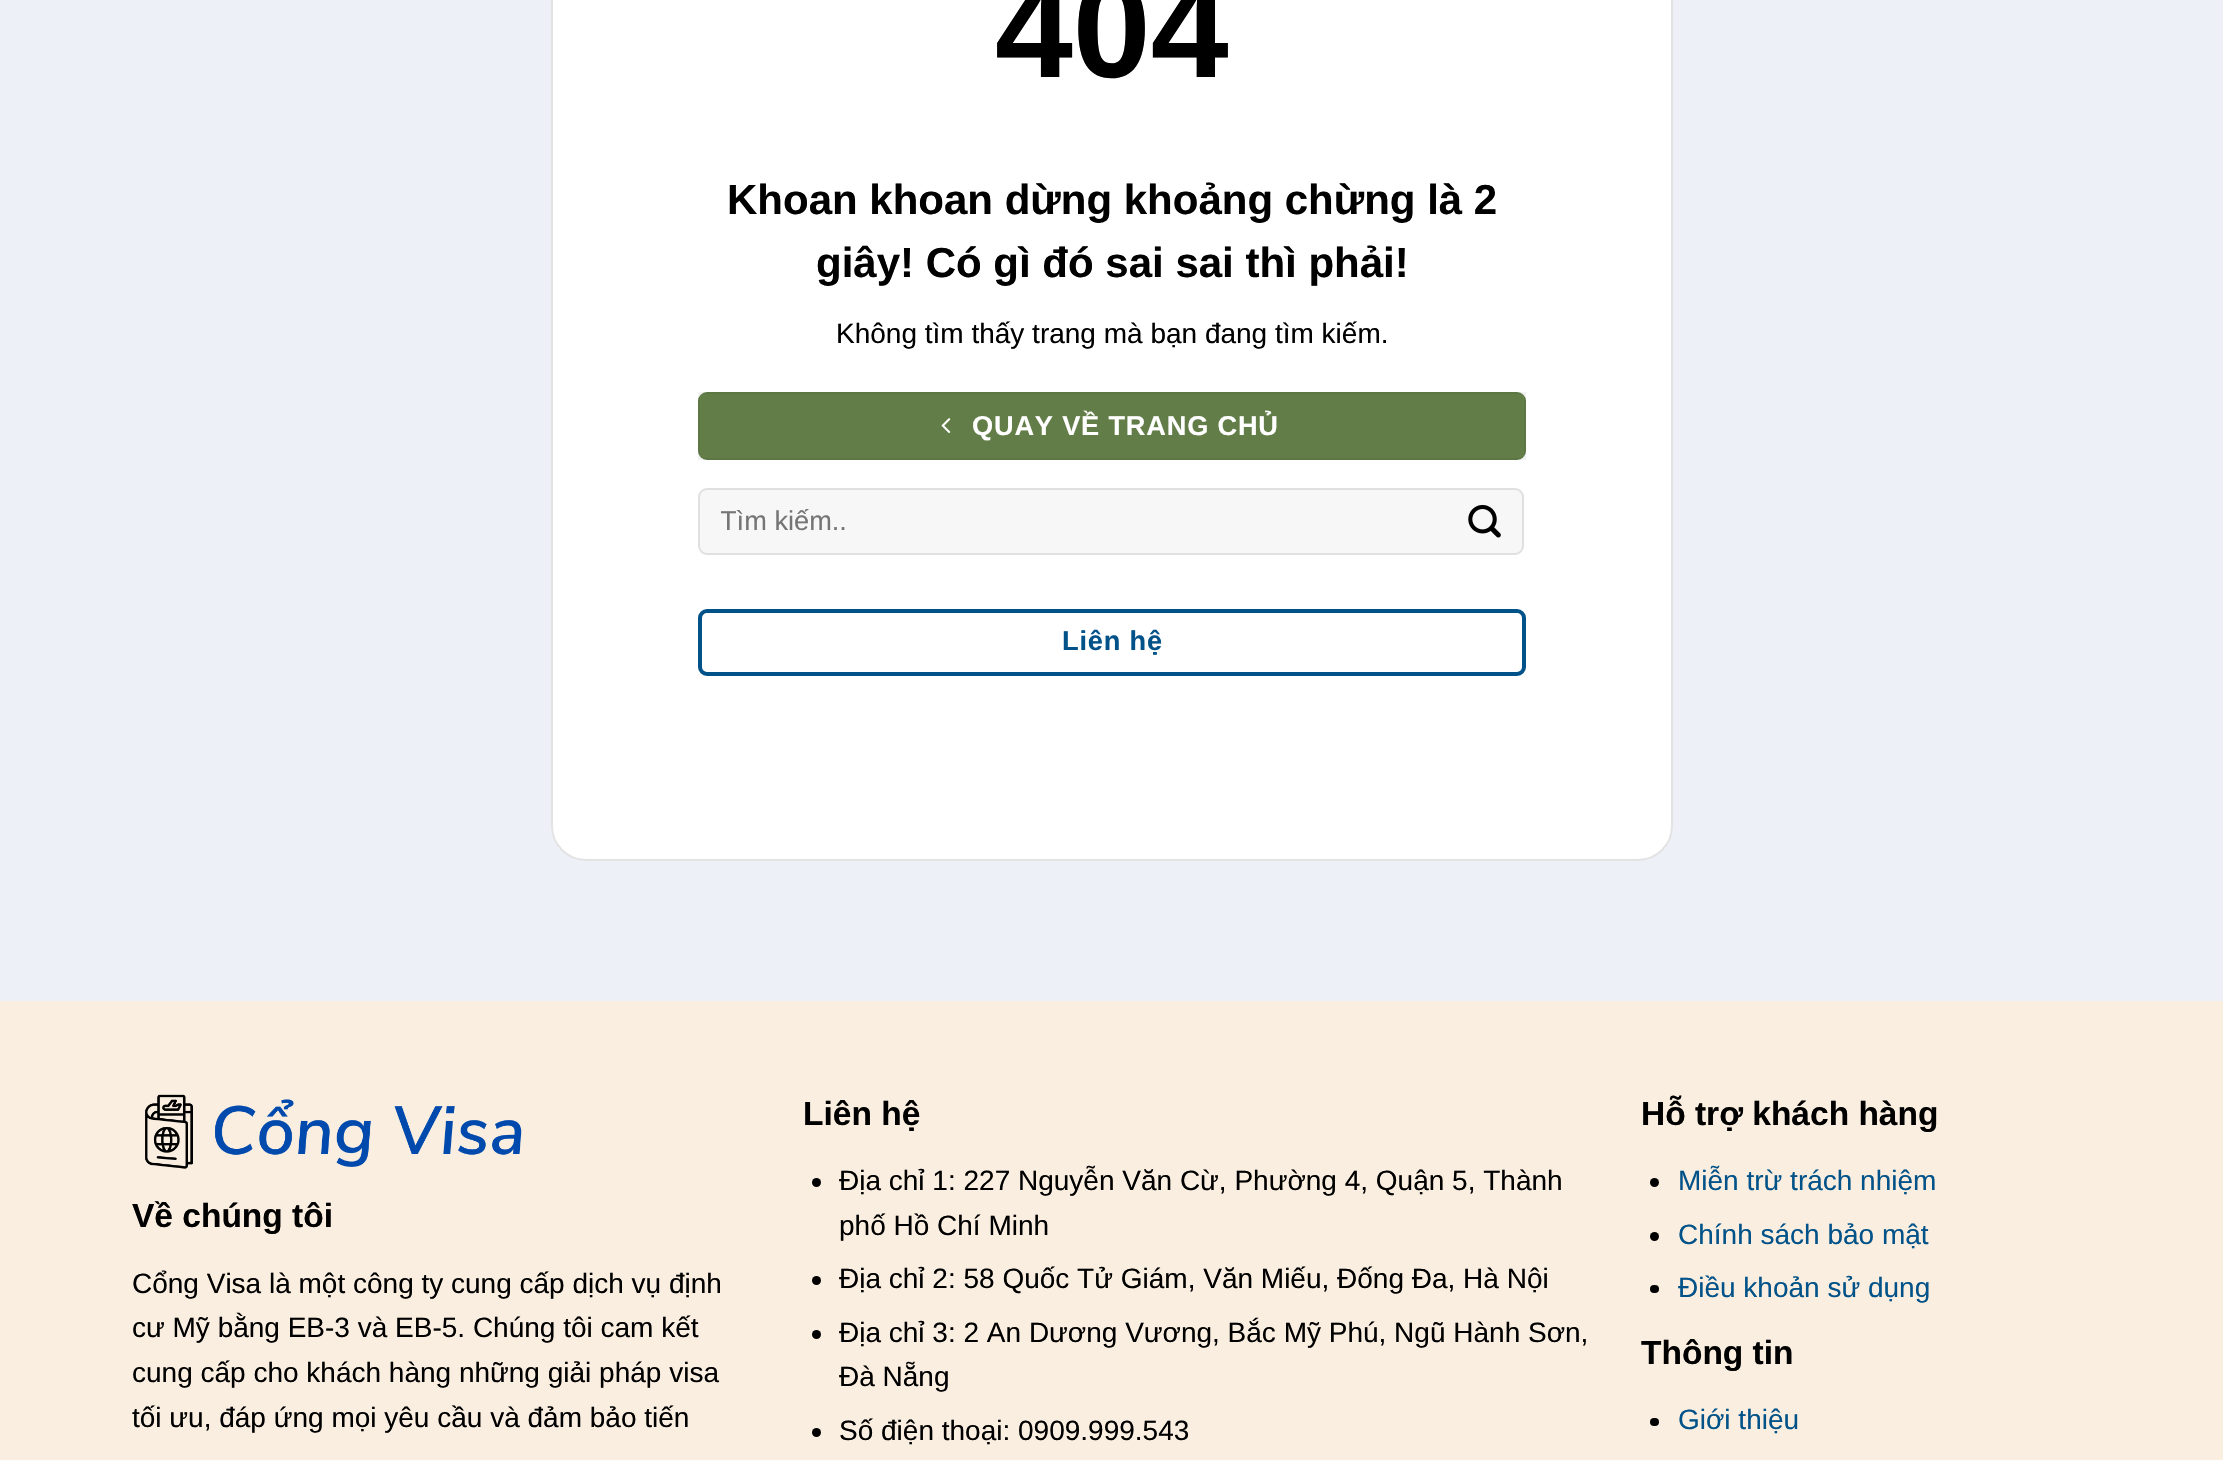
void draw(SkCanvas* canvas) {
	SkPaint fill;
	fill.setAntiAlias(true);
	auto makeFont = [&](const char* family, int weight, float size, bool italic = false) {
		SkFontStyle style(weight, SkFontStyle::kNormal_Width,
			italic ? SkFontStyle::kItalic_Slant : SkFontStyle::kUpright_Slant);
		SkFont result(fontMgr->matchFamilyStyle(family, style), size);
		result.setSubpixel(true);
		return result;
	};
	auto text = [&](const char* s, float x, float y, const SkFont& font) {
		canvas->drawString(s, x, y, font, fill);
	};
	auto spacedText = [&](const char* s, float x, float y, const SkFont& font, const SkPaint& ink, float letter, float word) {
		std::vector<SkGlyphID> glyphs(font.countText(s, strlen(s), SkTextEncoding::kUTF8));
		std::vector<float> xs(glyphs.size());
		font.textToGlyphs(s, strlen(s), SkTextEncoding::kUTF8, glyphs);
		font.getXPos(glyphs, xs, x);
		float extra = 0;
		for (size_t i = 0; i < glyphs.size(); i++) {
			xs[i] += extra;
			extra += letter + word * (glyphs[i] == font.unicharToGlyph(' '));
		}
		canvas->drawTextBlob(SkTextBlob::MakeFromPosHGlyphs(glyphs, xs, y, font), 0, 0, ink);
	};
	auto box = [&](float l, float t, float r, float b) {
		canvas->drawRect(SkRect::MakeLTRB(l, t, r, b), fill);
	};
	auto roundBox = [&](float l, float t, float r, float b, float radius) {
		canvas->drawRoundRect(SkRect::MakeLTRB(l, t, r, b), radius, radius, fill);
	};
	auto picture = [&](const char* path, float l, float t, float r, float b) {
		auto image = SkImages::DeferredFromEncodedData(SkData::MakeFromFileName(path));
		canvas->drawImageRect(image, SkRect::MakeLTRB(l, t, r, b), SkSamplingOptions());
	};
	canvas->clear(0xFFEDF1F7);
	fill.setColor(0xFFFFFFFF);
	canvas->drawRoundRect(SkRect::MakeLTRB(552, -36, 1672, 860), 34, 34, fill);
	fill.setStyle(SkPaint::kStroke_Style);
	fill.setStrokeWidth(2);
	fill.setColor(0xFFE3E3E3);
	canvas->drawRoundRect(SkRect::MakeLTRB(552, -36, 1672, 860), 34, 34, fill);
	fill.setStyle(SkPaint::kFill_Style);
	fill.setColor(0xFF627D47);
	roundBox(698, 392, 1526, 460, 9);
	fill.setStyle(SkPaint::kStroke_Style);
	fill.setColor(0x0D000000);
	canvas->drawRect(SkRect::MakeLTRB(699, 393, 1525, 459), fill);
	picture("image0.png", 941, 418, 951, 434);
	fill.setStyle(SkPaint::kFill_Style);
	fill.setColor(0xFFF7F7F7);
	roundBox(698, 488, 1524, 555, 9);
	fill.setStyle(SkPaint::kStroke_Style);
	fill.setColor(0x17000000);
	canvas->drawRoundRect(SkRect::MakeLTRB(699, 489, 1523, 554), 8, 8, fill);
	picture("image1.png", 1468, 504, 1501, 538);
	fill.setStrokeWidth(4);
	fill.setColor(0xFF005288);
	canvas->drawRoundRect(SkRect::MakeLTRB(700, 611, 1524, 674), 7, 7, fill);
	fill.setStyle(SkPaint::kFill_Style);
	fill.setColor(0xFFFAEEE0);
	box(0, 1001, 2223, 1460);
	picture("image2.png", 145, 1094, 522, 1169);
	fill.setColor(0xFF000000);
	canvas->drawCircle(816.5f, 1182.5f, 4.5f, fill);
	canvas->drawCircle(816.5f, 1280.5f, 4.5f, fill);
	canvas->drawCircle(816.5f, 1334.5f, 4.5f, fill);
	canvas->drawCircle(816.5f, 1432.5f, 4.5f, fill);
	canvas->drawCircle(1654.5f, 1182.5f, 4.5f, fill);
	canvas->drawCircle(1654.5f, 1236.5f, 4.5f, fill);
	roundBox(1650, 1285, 1659, 1293, 4);
	roundBox(1650, 1418, 1659, 1426, 4);
	auto font1 = makeFont("Liberation Sans", 700, 140);
	text("404", 995, 77, font1);
	auto font2 = makeFont("Liberation Sans", 700, 42);
	text("Khoan khoan dừng khoảng chừng là 2", 727, 214, font2);
	text("giây! Có gì đó sai sai thì phải!", 816, 277, font2);
	auto font3 = makeFont("Liberation Sans", 400, 28);
	text("Không tìm thấy trang mà bạn đang tìm kiếm.", 836, 343, font3);
	auto font4 = makeFont("Liberation Sans", 700, 27.2f);
	fill.setColor(0xFFFFFFFF);
	spacedText("QUAY VỀ TRANG CHỦ", 972, 435, font4, fill, 0.8f, 0);
	canvas->save();
	canvas->clipRect(SkRect::MakeLTRB(721, 506, 1495, 537));
	auto font5 = makeFont("Liberation Sans", 400, 27.2f);
	fill.setColor(0xFF757575);
	text("Tìm kiếm..", 720, 530, font5);
	canvas->restore();
	fill.setColor(0xFF005288);
	spacedText("Liên hệ", 1062, 650, font4, fill, 0.8f, 0);
	auto font6 = makeFont("Liberation Sans", 700, 33.5f);
	fill.setColor(0xFF000000);
	text("Về chúng tôi", 132, 1227, font6);
	text("Cổng Visa là một công ty cung cấp dịch vụ định", 132, 1293, font3);
	text("cư Mỹ bằng EB-3 và EB-5. Chúng tôi cam kết", 132, 1337, font3);
	text("cung cấp cho khách hàng những giải pháp visa", 132, 1382, font3);
	text("tối ưu, đáp ứng mọi yêu cầu và đảm bảo tiến", 132, 1427, font3);
	text("Liên hệ", 803, 1125, font6);
	text("Địa chỉ 1: 227 Nguyễn Văn Cừ, Phường 4, Quận 5, Thành", 839, 1190, font3);
	text("phố Hồ Chí Minh", 839, 1235, font3);
	text("Địa chỉ 2: 58 Quốc Tử Giám, Văn Miếu, Đống Đa, Hà Nội", 839, 1288, font3);
	text("Địa chỉ 3: 2 An Dương Vương, Bắc Mỹ Phú, Ngũ Hành Sơn,", 839, 1342, font3);
	text("Đà Nẵng", 839, 1386, font3);
	text("Số điện thoại: 0909.999.543", 839, 1440, font3);
	text("Hỗ trợ khách hàng", 1641, 1125, font6);
	fill.setColor(0xFF005288);
	text("Miễn trừ trách nhiệm", 1678, 1190, font3);
	text("Chính sách bảo mật", 1678, 1244, font3);
	text("Điều khoản sử dụng", 1678, 1297, font3);
	fill.setColor(0xFF000000);
	text("Thông tin", 1641, 1364, font6);
	fill.setColor(0xFF005288);
	text("Giới thiệu", 1678, 1429, font3);
}
